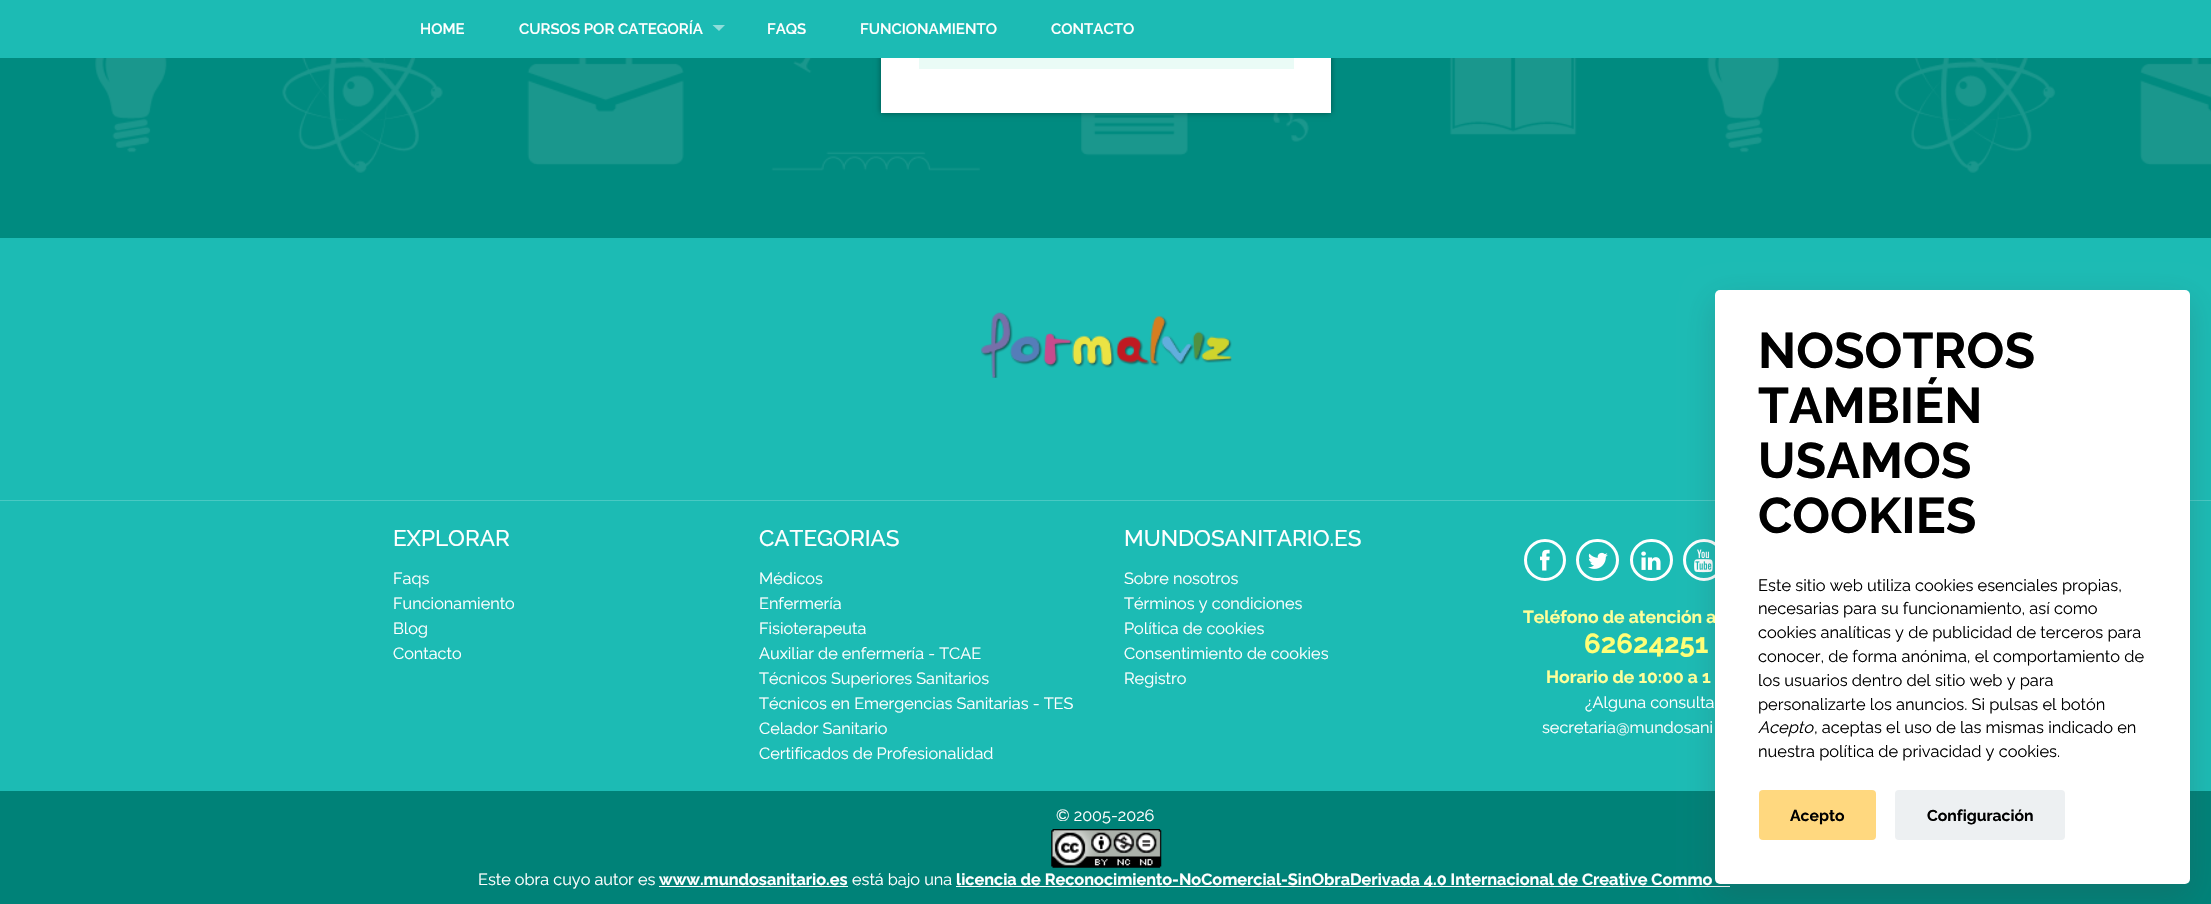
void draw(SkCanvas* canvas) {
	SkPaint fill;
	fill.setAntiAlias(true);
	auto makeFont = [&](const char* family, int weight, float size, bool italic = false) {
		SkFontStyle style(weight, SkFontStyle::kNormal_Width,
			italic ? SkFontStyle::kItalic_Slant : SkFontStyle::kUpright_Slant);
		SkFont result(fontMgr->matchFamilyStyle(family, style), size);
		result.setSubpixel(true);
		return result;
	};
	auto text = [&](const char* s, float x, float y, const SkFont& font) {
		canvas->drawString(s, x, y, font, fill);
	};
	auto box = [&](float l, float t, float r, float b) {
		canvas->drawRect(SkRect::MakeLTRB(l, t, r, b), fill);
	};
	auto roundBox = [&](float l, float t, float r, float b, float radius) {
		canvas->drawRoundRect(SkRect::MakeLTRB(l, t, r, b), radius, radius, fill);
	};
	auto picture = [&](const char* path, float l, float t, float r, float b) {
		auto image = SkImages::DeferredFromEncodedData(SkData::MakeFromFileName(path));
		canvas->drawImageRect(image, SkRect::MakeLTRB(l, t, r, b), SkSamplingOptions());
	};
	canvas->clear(0xFF008B80);
	picture("image0.png", 95, 58, 2211, 173);
	fill.setColor(0x66000000);
	fill.setMaskFilter(SkMaskFilter::MakeBlur(kNormal_SkBlurStyle, 3));
	canvas->drawRect(SkRect::MakeLTRB(881, -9, 1331, 113), fill);
	fill.setMaskFilter(nullptr);
	fill.setColor(0xFFFFFFFF);
	box(881, 58, 1331, 113);
	fill.setColor(0xFFEAFBF6);
	box(919, 58, 1294, 69);
	fill.setColor(0xFF1CBBB4);
	box(0, 0, 2211, 58);
	fill.setColor(0xFF8EDDDA);
	canvas->drawPath(SkPathBuilder().moveTo(712.5f, 25).lineTo(725, 25).lineTo(719, 31).close().detach(), fill);
	fill.setColor(0xFF1CBBB4);
	box(0, 238, 2211, 791);
	picture("image1.png", 981, 312, 1232, 378);
	fill.setColor(0xFF49C9C3);
	box(0, 500, 2211, 501);
	fill.setStyle(SkPaint::kStroke_Style);
	fill.setStrokeWidth(3);
	fill.setColor(0xFFFFFFFF);
	canvas->drawCircle(1545, 560, 19.5f, fill);
	picture("image2.png", 1540, 549, 1550, 571);
	canvas->drawRoundRect(SkRect::MakeLTRB(1577.5f, 540.5f, 1617.5f, 579.5f), 19.5f, 19.5f, fill);
	picture("image3.png", 1588, 552, 1608, 569);
	canvas->drawRoundRect(SkRect::MakeLTRB(1631.5f, 540.5f, 1671.5f, 579.5f), 19.5f, 19.5f, fill);
	picture("image4.png", 1641, 551, 1661, 570);
	canvas->drawCircle(1704, 560, 19.5f, fill);
	picture("image5.png", 1694, 549, 1713, 573);
	fill.setStyle(SkPaint::kFill_Style);
	fill.setColor(0xFF008278);
	box(0, 791, 2211, 904);
	picture("image6.png", 1051, 829, 1162, 868);
	fill.setColor(0xFFFFFFFF);
	box(659, 886, 848, 887);
	box(956, 886, 1730, 887);
	fill.setColor(0x38393E48);
	fill.setMaskFilter(SkMaskFilter::MakeBlur(kNormal_SkBlurStyle, 16.5f));
	canvas->drawRoundRect(SkRect::MakeLTRB(1715, 301, 2190, 895), 5, 5, fill);
	fill.setMaskFilter(nullptr);
	auto font1 = makeFont("Raleway", 600, 15);
	fill.setColor(0xFFFFFFFF);
	text("HOME", 420, 34, font1);
	text("CURSOS POR CATEGORÍA", 519, 34, font1);
	text("FAQS", 767, 34, font1);
	text("FUNCIONAMIENTO", 860, 34, font1);
	text("CONTACTO", 1051, 34, font1);
	auto font2 = makeFont("Raleway", 500, 22.5f);
	text("EXPLORAR", 393, 546, font2);
	auto font3 = makeFont("Raleway", 400, 16.25f);
	text("Faqs", 393, 584, font3);
	text("Funcionamiento", 393, 609, font3);
	text("Blog", 393, 634, font3);
	text("Contacto", 393, 659, font3);
	text("CATEGORIAS", 759, 546, font2);
	text("Médicos", 759, 584, font3);
	text("Enfermería", 759, 609, font3);
	text("Fisioterapeuta", 759, 634, font3);
	text("Auxiliar de enfermería - TCAE", 759, 659, font3);
	text("Técnicos Superiores Sanitarios", 759, 684, font3);
	text("Técnicos en Emergencias Sanitarias - TES", 759, 709, font3);
	text("Celador Sanitario", 759, 734, font3);
	text("Certificados de Profesionalidad", 759, 759, font3);
	text("MUNDOSANITARIO.ES", 1124, 546, font2);
	text("Sobre nosotros", 1124, 584, font3);
	text("Términos y condiciones", 1124, 609, font3);
	text("Política de cookies", 1124, 634, font3);
	text("Consentimiento de cookies", 1124, 659, font3);
	text("Registro", 1124, 684, font3);
	auto font4 = makeFont("Raleway", 700, 17.5f);
	fill.setColor(0xFFFFFF99);
	text("Teléfono de atención a", 1523, 623, font4);
	auto font5 = makeFont("Raleway", 700, 27.5f);
	fill.setColor(0xFFFFFF77);
	text("62624251", 1584, 653, font5);
	fill.setColor(0xFFFFFF99);
	text("Horario de 10:00 a 1", 1546, 683, font4);
	fill.setColor(0xFFFFFFFF);
	text("¿Alguna consulta", 1585, 708, font3);
	text("secretaria@mundosani", 1542, 733, font3);
	text("© 2005-2026", 1056, 821, font3);
	text("Este obra cuyo autor es", 478, 885, font3);
	auto font6 = makeFont("Raleway", 700, 16.25f);
	text("www.mundosanitario.es", 659, 885, font6);
	text("está bajo una", 852, 885, font3);
	text("licencia de Reconocimiento-NoComercial-SinObraDerivada 4.0 Internacional de Creative Commo", 956, 885, font6);
	roundBox(1715, 290, 2190, 884, 5);
	auto font7 = makeFont("Raleway", 700, 50);
	fill.setColor(0xFF000000);
	text("NOSOTROS", 1758, 368, font7);
	text("TAMBIÉN", 1758, 423, font7);
	text("USAMOS", 1758, 478, font7);
	text("COOKIES", 1758, 533, font7);
	auto font8 = makeFont("Raleway", 400, 16.4f);
	text("Este sitio web utiliza cookies esenciales propias,", 1758, 591, font8);
	text("necesarias para su funcionamiento, así como", 1758, 614, font8);
	text("cookies analíticas y de publicidad de terceros para", 1758, 638, font8);
	text("conocer, de forma anónima, el comportamiento de", 1758, 662, font8);
	text("los usuarios dentro del sitio web y para", 1758, 686, font8);
	text("personalizarte los anuncios. Si pulsas el botón", 1758, 710, font8);
	auto font9 = makeFont("Raleway", 400, 16.4f, true);
	text("Acepto", 1758, 733, font9);
	text(", aceptas el uso de las mismas indicado en", 1814, 733, font8);
	text("nuestra política de privacidad y cookies.", 1758, 757, font8);
	fill.setColor(0xFFFFD87F);
	roundBox(1759, 790, 1876, 840, 4);
	auto font10 = makeFont("Raleway", 700, 15.75f);
	fill.setColor(0xFF000000);
	text("Acepto", 1790, 821, font10);
	fill.setColor(0xFFEDF0F2);
	roundBox(1895, 790, 2065, 840, 4);
	fill.setColor(0xFF000000);
	text("Configuración", 1927, 821, font10);
}
